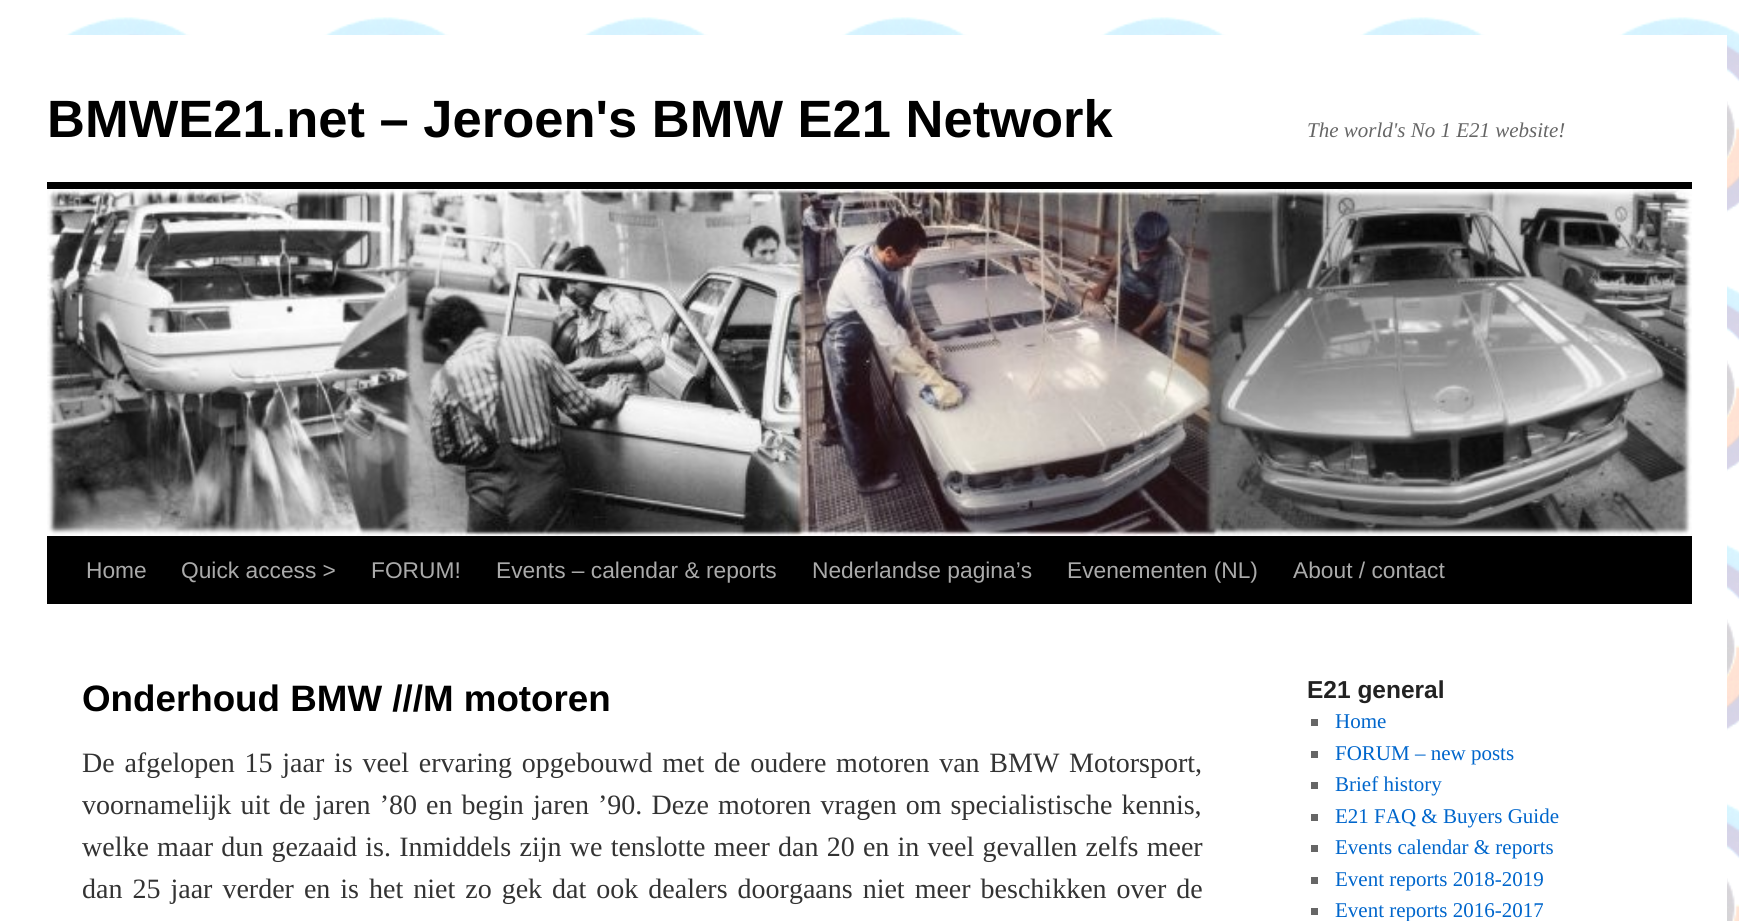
import math
import cairo

surface = cairo.ImageSurface(cairo.FORMAT_RGB24, 1739, 921)
cr = cairo.Context(surface)
options = cairo.FontOptions()
options.set_hint_metrics(cairo.HINT_METRICS_OFF)
options.set_hint_style(cairo.HINT_STYLE_NONE)
cr.set_font_options(options)
cr.set_miter_limit(4)


def rgb(code):
    cr.set_source_rgb(*(v / 255 for v in bytes.fromhex(code[-6:])))


def tracked(x, y, s, letter, word):
    cr.move_to(x, y)
    for ch in s:
        cr.show_text(ch)
        cr.rel_move_to(letter + word * (ch == ' '), 0)


def image(path, x, y, w, h):
    cr.save()
    cr.set_source_surface(cairo.ImageSurface.create_from_png(path), x, y)
    cr.rectangle(x, y, w, h)
    cr.fill()
    cr.restore()


rgb("#ffffff")
cr.paint()
image("img/1.png", 0, 0, 1739, 921)
for x, y, w, h, color in [
    (15, 35, 1712, 886, "#ffffff"),
    (47, 182, 1645, 7, "#000000"),
    (47, 536, 1645, 68, "#000000"),
]:
    rgb(color)
    cr.rectangle(x, y, w, h)
    cr.fill()
image("img/2.png", 47, 189, 1645, 347)
for x, y, w, h, color in [
    (1311, 719, 7, 7, "#666666"),
    (1311, 751, 7, 7, "#666666"),
    (1311, 782, 7, 7, "#666666"),
    (1311, 814, 7, 7, "#666666"),
    (1311, 845, 7, 7, "#666666"),
    (1311, 877, 7, 7, "#666666"),
    (1311, 908, 7, 7, "#666666"),
]:
    rgb(color)
    cr.rectangle(x, y, w, h)
    cr.fill()
cr.select_font_face("Liberation Sans", cairo.FONT_SLANT_NORMAL, cairo.FONT_WEIGHT_BOLD)
cr.set_font_size(52.5)
rgb("#000000")
cr.move_to(47, 137)
cr.show_text("BMWE21.net – Jeroen's BMW E21 Network")
cr.select_font_face("Liberation Serif", cairo.FONT_SLANT_ITALIC)
cr.set_font_size(21)
rgb("#666666")
cr.move_to(1307, 137)
cr.show_text("The world's No 1 E21 website!")
cr.select_font_face("Liberation Sans")
cr.set_font_size(22.75)
rgb("#aaaaaa")
for x, y, s in [
    (86, 578, "Home"),
    (181, 578, "Quick access >"),
    (371, 578, "FORUM!"),
    (496, 578, "Events – calendar & reports"),
    (812, 578, "Nederlandse pagina’s"),
    (1067, 578, "Evenementen (NL)"),
    (1293, 578, "About / contact"),
]:
    cr.move_to(x, y)
    cr.show_text(s)
cr.select_font_face("Liberation Sans", cairo.FONT_SLANT_NORMAL, cairo.FONT_WEIGHT_BOLD)
cr.set_font_size(36.75)
rgb("#000000")
cr.move_to(82, 711)
cr.show_text("Onderhoud BMW ///M motoren")
cr.select_font_face("Liberation Serif")
cr.set_font_size(28)
rgb("#333333")
tracked(82, 772, "De afgelopen 15 jaar is veel ervaring opgebouwd met de oudere motoren van BMW Motorsport,", 0, 2.75)
tracked(82, 814, "voornamelijk uit de jaren ’80 en begin jaren ’90. Deze motoren vragen om specialistische kennis,", 0, 2.1)
tracked(82, 856, "welke maar dun gezaaid is. Inmiddels zijn we tenslotte meer dan 20 en in veel gevallen zelfs meer", 0, 1.25)
tracked(82, 898, "dan 25 jaar verder en is het niet zo gek dat ook dealers doorgaans niet meer beschikken over de", 0, 3)
cr.select_font_face("Liberation Sans", cairo.FONT_SLANT_NORMAL, cairo.FONT_WEIGHT_BOLD)
cr.set_font_size(24.5)
rgb("#222222")
cr.move_to(1307, 698)
cr.show_text("E21 general")
cr.select_font_face("Liberation Serif")
cr.set_font_size(21)
rgb("#0066cc")
for x, y, s in [
    (1335, 728, "Home"),
    (1335, 760, "FORUM – new posts"),
    (1335, 791, "Brief history"),
    (1335, 823, "E21 FAQ & Buyers Guide"),
    (1335, 854, "Events calendar & reports"),
    (1335, 886, "Event reports 2018-2019"),
    (1335, 917, "Event reports 2016-2017"),
]:
    cr.move_to(x, y)
    cr.show_text(s)
surface.write_to_png("page.png")
